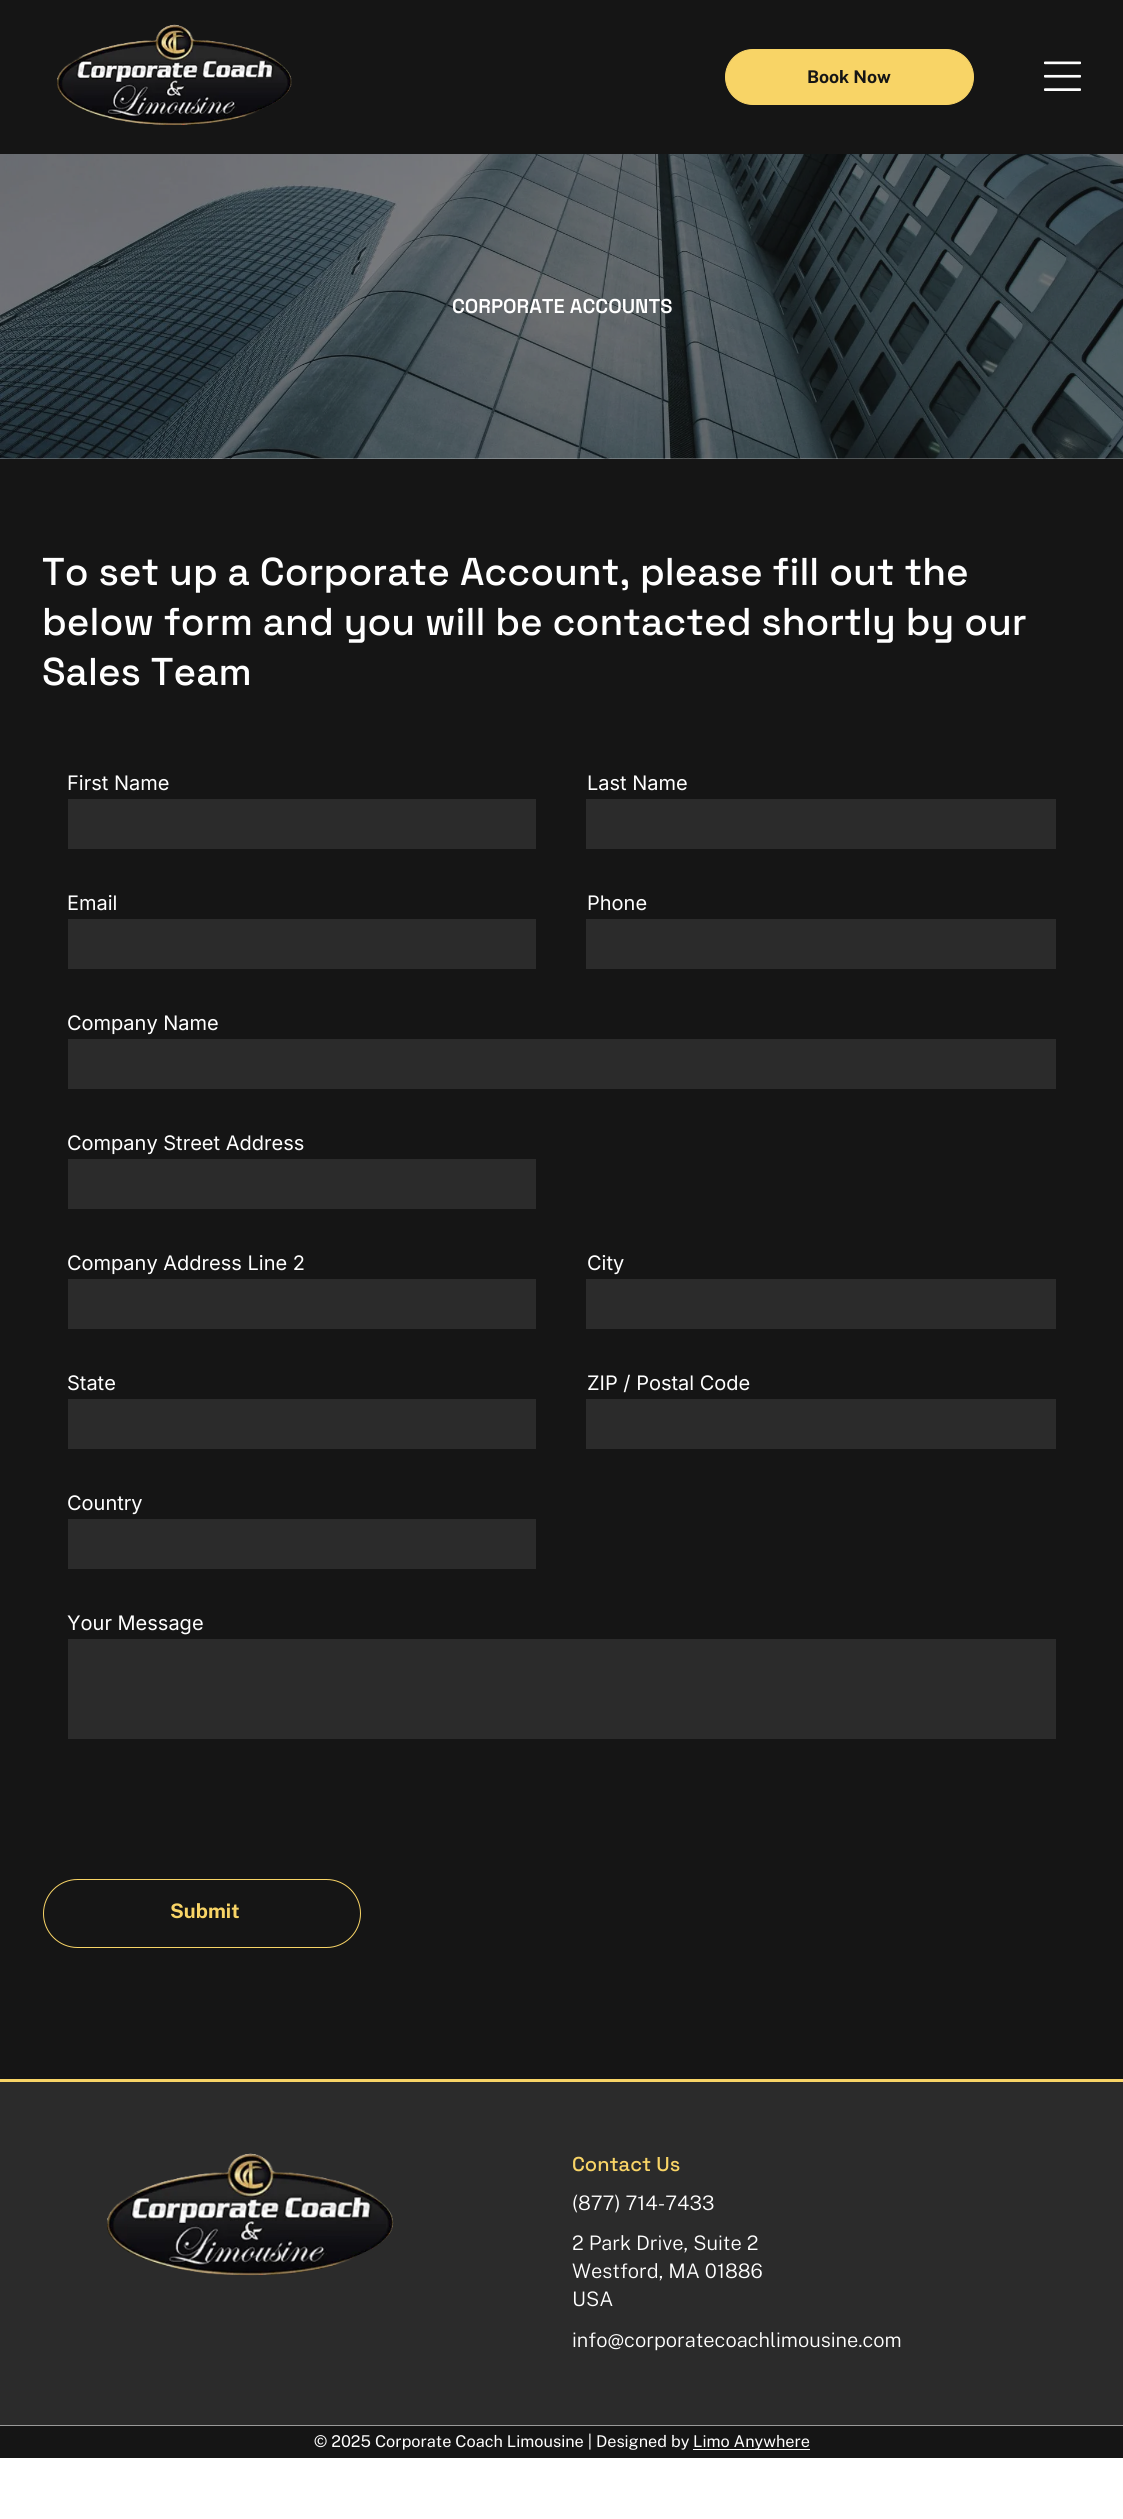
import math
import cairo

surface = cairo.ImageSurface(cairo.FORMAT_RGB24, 1123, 2519)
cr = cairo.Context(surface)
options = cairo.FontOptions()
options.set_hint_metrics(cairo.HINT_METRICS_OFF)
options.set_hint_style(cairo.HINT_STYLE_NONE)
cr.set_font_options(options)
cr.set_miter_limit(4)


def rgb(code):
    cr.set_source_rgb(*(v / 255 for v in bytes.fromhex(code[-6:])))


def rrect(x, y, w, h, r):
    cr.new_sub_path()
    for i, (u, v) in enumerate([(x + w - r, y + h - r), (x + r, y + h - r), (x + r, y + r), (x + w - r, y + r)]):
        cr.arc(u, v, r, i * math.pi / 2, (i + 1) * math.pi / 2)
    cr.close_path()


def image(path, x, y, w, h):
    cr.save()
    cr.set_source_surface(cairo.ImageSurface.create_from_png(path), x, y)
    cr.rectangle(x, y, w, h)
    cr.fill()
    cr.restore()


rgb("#ffffff")
cr.paint()
rgb("#151515")
cr.rectangle(0, 0, 1123, 154)
cr.fill()
image("img/1.png", 57, 24, 235, 101)
rgb("#f8d466")
rrect(725.5, 49.5, 248, 55, 27.5)
cr.fill_preserve()
cr.set_line_width(1)
cr.stroke()
image("img/2.png", 1044, 61, 37, 30)
image("img/3.png", 0, 154, 1123, 305)
for x, y, w, h, color in [
    (0, 459, 1123, 1620, "#151515"),
    (68, 799, 468, 50, "#2b2b2b"),
    (586, 799, 470, 50, "#2b2b2b"),
    (68, 919, 468, 50, "#2b2b2b"),
    (586, 919, 470, 50, "#2b2b2b"),
    (68, 1039, 988, 50, "#2b2b2b"),
    (68, 1159, 468, 50, "#2b2b2b"),
    (68, 1279, 468, 50, "#2b2b2b"),
    (586, 1279, 470, 50, "#2b2b2b"),
    (68, 1399, 468, 50, "#2b2b2b"),
    (586, 1399, 470, 50, "#2b2b2b"),
    (68, 1519, 468, 50, "#2b2b2b"),
    (68, 1639, 988, 100, "#2b2b2b"),
]:
    rgb(color)
    cr.rectangle(x, y, w, h)
    cr.fill()
rrect(43.5, 1879.5, 317, 68, 34)
rgb("#f8d466")
cr.stroke()
rgb("#2b2b2b")
cr.rectangle(0, 2082, 1123, 343)
cr.fill()
rgb("#f8d466")
cr.rectangle(0, 2079, 1123, 3)
cr.fill()
image("img/4.png", 107, 2153, 287, 123)
for x, y, w, h, color in [
    (0, 2426, 1123, 32, "#151515"),
    (0, 2425, 1123, 1, "#9a9a9a"),
    (693, 2449, 117, 1, "#ffffff"),
]:
    rgb(color)
    cr.rectangle(x, y, w, h)
    cr.fill()
cr.select_font_face("Public Sans", cairo.FONT_SLANT_NORMAL, cairo.FONT_WEIGHT_BOLD)
cr.set_font_size(17.5)
rgb("#151515")
cr.move_to(807, 83)
cr.show_text("Book Now")
cr.select_font_face("Space Grotesk SemiBold")
cr.set_font_size(20)
rgb("#ffffff")
cr.move_to(452, 313)
cr.show_text("CORPORATE ACCOUNTS")
cr.select_font_face("Space Grotesk Medium")
cr.set_font_size(38.75)
for x, y, s in [
    (42, 585, "To set up a Corporate Account, please fill out the"),
    (42, 635, "below form and you will be contacted shortly by our"),
    (42, 685, "Sales Team"),
]:
    cr.move_to(x, y)
    cr.show_text(s)
cr.select_font_face("Inter")
cr.set_font_size(20)
for x, y, s in [
    (67, 790, "First Name"),
    (587, 790, "Last Name"),
    (67, 910, "Email"),
    (587, 910, "Phone"),
    (67, 1030, "Company Name"),
    (67, 1150, "Company Street Address"),
    (67, 1270, "Company Address Line 2"),
    (587, 1270, "City"),
    (67, 1390, "State"),
    (587, 1390, "ZIP / Postal Code"),
    (67, 1510, "Country"),
    (67, 1630, "Your Message"),
]:
    cr.move_to(x, y)
    cr.show_text(s)
cr.select_font_face("Public Sans", cairo.FONT_SLANT_NORMAL, cairo.FONT_WEIGHT_BOLD)
rgb("#f8d466")
cr.move_to(170, 1918)
cr.show_text("Submit")
cr.select_font_face("Space Grotesk Medium")
cr.move_to(572, 2171)
cr.show_text("Contact Us")
cr.select_font_face("Public Sans Light")
rgb("#ffffff")
for x, y, s in [
    (572, 2210, "(877) 714-7433"),
    (572, 2250, "2 Park Drive, Suite 2"),
    (572, 2278, "Westford, MA 01886"),
    (572, 2306, "USA"),
    (572, 2347, "info@corporatecoachlimousine.com"),
]:
    cr.move_to(x, y)
    cr.show_text(s)
cr.select_font_face("Public Sans")
cr.set_font_size(16.25)
cr.move_to(314, 2447)
cr.show_text("© 2025 Corporate Coach Limousine | Designed by")
cr.move_to(693, 2447)
cr.show_text("Limo Anywhere")
surface.write_to_png("page.png")
